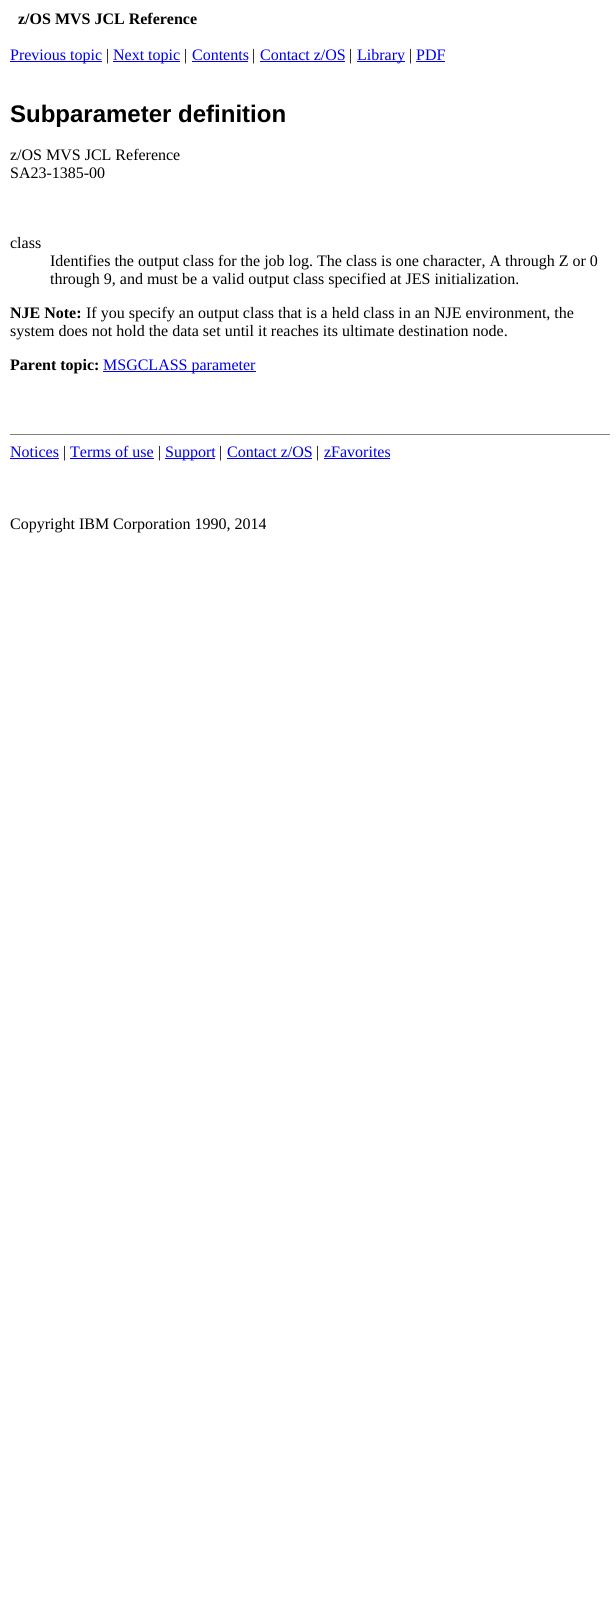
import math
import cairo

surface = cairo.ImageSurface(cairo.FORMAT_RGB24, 616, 1605)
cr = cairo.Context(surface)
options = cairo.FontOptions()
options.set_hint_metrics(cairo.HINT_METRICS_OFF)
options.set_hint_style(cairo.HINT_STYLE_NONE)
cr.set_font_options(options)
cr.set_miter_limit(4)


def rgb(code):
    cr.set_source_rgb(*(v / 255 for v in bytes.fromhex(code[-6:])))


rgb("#ffffff")
cr.paint()
for x, y, w, h, color in [
    (10, 61, 92, 1, "#0000ee"),
    (113, 61, 67, 1, "#0000ee"),
    (192, 61, 56, 1, "#0000ee"),
    (260, 61, 85, 1, "#0000ee"),
    (357, 61, 48, 1, "#0000ee"),
    (416, 61, 29, 1, "#0000ee"),
    (103, 371, 153, 1, "#0000ee"),
    (10, 434, 600, 1, "#808080"),
    (10, 458, 49, 1, "#0000ee"),
    (70, 458, 84, 1, "#0000ee"),
    (165, 458, 50, 1, "#0000ee"),
    (227, 458, 85, 1, "#0000ee"),
    (324, 458, 66, 1, "#0000ee"),
]:
    rgb(color)
    cr.rectangle(x, y, w, h)
    cr.fill()
cr.select_font_face("Liberation Serif", cairo.FONT_SLANT_NORMAL, cairo.FONT_WEIGHT_BOLD)
cr.set_font_size(16)
rgb("#000000")
cr.move_to(18, 24)
cr.show_text("z/OS MVS JCL Reference")
cr.select_font_face("Liberation Serif")
rgb("#0000ee")
cr.move_to(10, 60)
cr.show_text("Previous topic")
rgb("#000000")
cr.move_to(106, 60)
cr.show_text("|")
rgb("#0000ee")
cr.move_to(113, 60)
cr.show_text("Next topic")
rgb("#000000")
cr.move_to(184, 60)
cr.show_text("|")
rgb("#0000ee")
cr.move_to(192, 60)
cr.show_text("Contents")
rgb("#000000")
cr.move_to(252, 60)
cr.show_text("|")
rgb("#0000ee")
cr.move_to(260, 60)
cr.show_text("Contact z/OS")
rgb("#000000")
cr.move_to(349, 60)
cr.show_text("|")
rgb("#0000ee")
cr.move_to(357, 60)
cr.show_text("Library")
rgb("#000000")
cr.move_to(409, 60)
cr.show_text("|")
rgb("#0000ee")
cr.move_to(416, 60)
cr.show_text("PDF")
cr.select_font_face("Liberation Sans", cairo.FONT_SLANT_NORMAL, cairo.FONT_WEIGHT_BOLD)
cr.set_font_size(24)
rgb("#000000")
cr.move_to(10, 122)
cr.show_text("Subparameter definition")
cr.select_font_face("Liberation Serif")
cr.set_font_size(16)
for x, y, s in [
    (10, 160, "z/OS MVS JCL Reference"),
    (10, 178, "SA23-1385-00"),
    (10, 248, "class"),
    (50, 266, "Identifies the output class for the job log. The class is one character, A through Z or 0"),
    (50, 284, "through 9, and must be a valid output class specified at JES initialization."),
]:
    cr.move_to(x, y)
    cr.show_text(s)
cr.select_font_face("Liberation Serif", cairo.FONT_SLANT_NORMAL, cairo.FONT_WEIGHT_BOLD)
cr.move_to(10, 318)
cr.show_text("NJE Note:")
cr.select_font_face("Liberation Serif")
cr.move_to(86, 318)
cr.show_text("If you specify an output class that is a held class in an NJE environment, the")
cr.move_to(10, 336)
cr.show_text("system does not hold the data set until it reaches its ultimate destination node.")
cr.select_font_face("Liberation Serif", cairo.FONT_SLANT_NORMAL, cairo.FONT_WEIGHT_BOLD)
cr.move_to(10, 370)
cr.show_text("Parent topic:")
cr.select_font_face("Liberation Serif")
rgb("#0000ee")
cr.move_to(103, 370)
cr.show_text("MSGCLASS parameter")
cr.move_to(10, 457)
cr.show_text("Notices")
rgb("#000000")
cr.move_to(63, 457)
cr.show_text("|")
rgb("#0000ee")
cr.move_to(70, 457)
cr.show_text("Terms of use")
rgb("#000000")
cr.move_to(158, 457)
cr.show_text("|")
rgb("#0000ee")
cr.move_to(165, 457)
cr.show_text("Support")
rgb("#000000")
cr.move_to(219, 457)
cr.show_text("|")
rgb("#0000ee")
cr.move_to(227, 457)
cr.show_text("Contact z/OS")
rgb("#000000")
cr.move_to(316, 457)
cr.show_text("|")
rgb("#0000ee")
cr.move_to(324, 457)
cr.show_text("zFavorites")
rgb("#000000")
cr.move_to(10, 529)
cr.show_text("Copyright IBM Corporation 1990, 2014")
surface.write_to_png("page.png")
